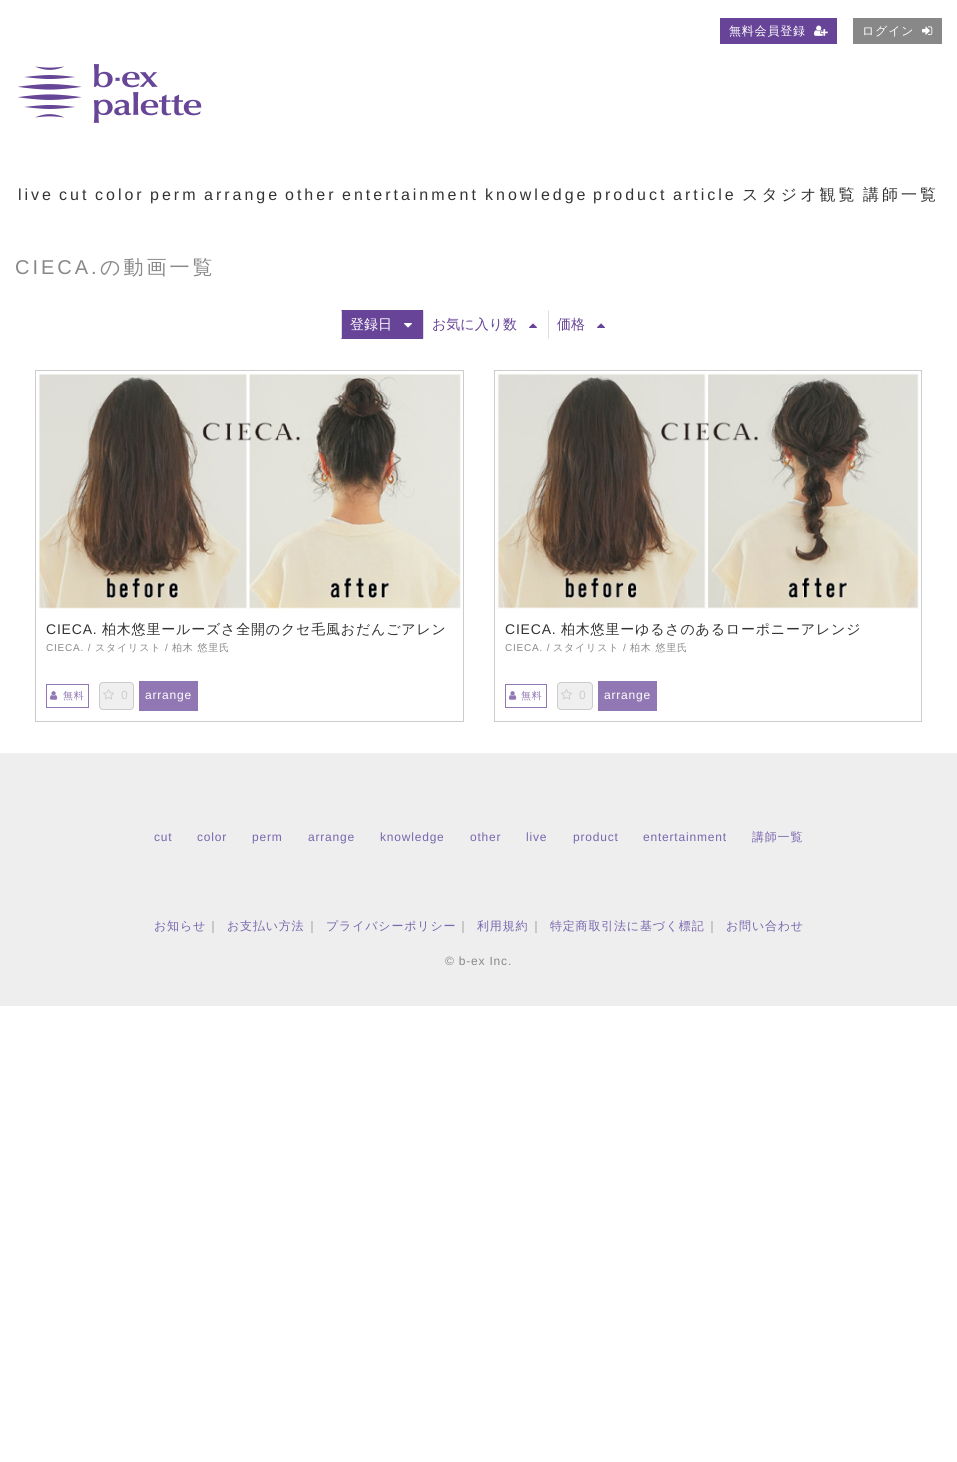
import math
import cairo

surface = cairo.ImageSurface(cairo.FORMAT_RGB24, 957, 1462)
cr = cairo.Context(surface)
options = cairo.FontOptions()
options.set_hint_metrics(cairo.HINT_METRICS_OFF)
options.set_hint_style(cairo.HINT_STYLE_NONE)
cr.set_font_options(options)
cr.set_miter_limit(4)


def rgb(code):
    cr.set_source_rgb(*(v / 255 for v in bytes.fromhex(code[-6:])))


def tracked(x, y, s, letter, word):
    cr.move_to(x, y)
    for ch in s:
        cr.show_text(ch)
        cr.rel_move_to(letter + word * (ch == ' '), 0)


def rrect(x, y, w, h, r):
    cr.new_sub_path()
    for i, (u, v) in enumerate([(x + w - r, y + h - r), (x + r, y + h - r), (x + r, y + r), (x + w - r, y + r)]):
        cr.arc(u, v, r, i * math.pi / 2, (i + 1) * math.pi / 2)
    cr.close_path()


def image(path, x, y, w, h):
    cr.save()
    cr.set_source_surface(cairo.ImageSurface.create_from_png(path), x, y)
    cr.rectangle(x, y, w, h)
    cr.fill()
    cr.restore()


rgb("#ffffff")
cr.paint()
rgb("#674498")
cr.rectangle(720, 18, 117, 26)
cr.fill()
image("img/1.png", 814, 25, 14, 11)
rgb("#888888")
cr.rectangle(853, 18, 89, 26)
cr.fill()
image("img/2.png", 922, 26, 11, 9)
image("img/3.png", 17, 64, 185, 59)
rgb("#674498")
cr.rectangle(341, 310, 82, 29)
cr.fill()
rgb("#dddddd")
cr.new_path()
cr.move_to(341, 339)
cr.line_to(341, 310)
cr.line_to(342, 311)
cr.line_to(342, 338)
cr.close_path()
cr.fill()
image("img/4.png", 404, 323, 8, 5)
cr.new_path()
cr.move_to(423, 339)
cr.line_to(423, 310)
cr.line_to(424, 311)
cr.line_to(424, 338)
cr.close_path()
cr.fill()
image("img/5.png", 529, 323, 8, 5)
cr.new_path()
cr.move_to(548, 339)
cr.line_to(548, 310)
cr.line_to(549, 311)
cr.line_to(549, 338)
cr.close_path()
cr.fill()
image("img/5.png", 597, 323, 8, 5)
cr.rectangle(35.5, 370.5, 428, 351)
rgb("#cccccc")
cr.set_line_width(1)
cr.stroke()
image("img/6.png", 38, 374, 423, 235)
cr.rectangle(46.5, 684.5, 42, 23)
rgb("#9178b4")
cr.stroke()
image("img/7.png", 50, 691, 8, 9)
rgb("#efefef")
rrect(99.5, 682.5, 34, 27, 3.5)
cr.fill_preserve()
rgb("#cccccc")
cr.stroke()
image("img/8.png", 103, 689, 11, 11)
rgb("#9178b4")
cr.rectangle(139, 681, 59, 30)
cr.fill()
cr.rectangle(494.5, 370.5, 427, 351)
rgb("#cccccc")
cr.stroke()
image("img/9.png", 496, 373, 423, 236)
cr.rectangle(505.5, 684.5, 41, 23)
rgb("#9178b4")
cr.stroke()
image("img/7.png", 509, 691, 8, 9)
rgb("#efefef")
rrect(557.5, 682.5, 35, 27, 3.5)
cr.fill_preserve()
rgb("#cccccc")
cr.stroke()
image("img/8.png", 561, 689, 11, 11)
rgb("#9178b4")
cr.rectangle(598, 681, 59, 30)
cr.fill()
rgb("#eeeeee")
cr.rectangle(0, 753, 957, 253)
cr.fill()
cr.select_font_face("WenQuanYi Zen Hei Medium")
cr.set_font_size(12)
rgb("#ffffff")
tracked(729, 35, "無料会員登録", 0.8, 0)
tracked(862, 35, "ログイン", 0.8, 0)
cr.select_font_face("Liberation Sans")
cr.set_font_size(16)
rgb("#333333")
for x, y, s in [
    (18, 200, "live"),
    (59, 200, "cut"),
    (95, 200, "color"),
    (150, 200, "perm"),
    (204, 200, "arrange"),
    (285, 200, "other"),
    (342, 200, "entertainment"),
    (485, 200, "knowledge"),
    (593, 200, "product"),
    (673, 200, "article"),
]:
    tracked(x, y, s, 3, 0)
cr.select_font_face("WenQuanYi Zen Hei Medium")
tracked(742, 200, "スタジオ観覧", 3, 0)
tracked(863, 200, "講師一覧", 3, 0)
cr.select_font_face("Liberation Sans")
cr.set_font_size(20)
rgb("#888888")
tracked(15, 274, "CIECA.", 3, 0)
cr.select_font_face("WenQuanYi Zen Hei Medium")
tracked(100, 274, "の動画一覧", 3, 0)
cr.set_font_size(14)
rgb("#ffffff")
cr.move_to(350, 329)
cr.show_text("登録日")
rgb("#674498")
cr.move_to(432, 329)
cr.show_text("お気に入り数")
cr.move_to(557, 329)
cr.show_text("価格")
cr.select_font_face("Liberation Sans")
rgb("#333333")
tracked(46, 634, "CIECA.", 0.8, 0)
cr.select_font_face("WenQuanYi Zen Hei Medium")
tracked(102, 634, "柏木悠里ールーズさ全開のクセ毛風おだんごアレン", 0.8, 0)
cr.select_font_face("Liberation Sans")
cr.set_font_size(10)
rgb("#888888")
tracked(46, 651, "CIECA. /", 0.8, 0)
cr.select_font_face("WenQuanYi Zen Hei Medium")
tracked(95, 651, "スタイリスト", 0.8, 0)
cr.select_font_face("Liberation Sans")
tracked(165, 651, "/", 0.8, 0)
cr.select_font_face("WenQuanYi Zen Hei Medium")
tracked(172, 651, "柏木 悠里氏", 0.8, 0)
rgb("#9178b4")
tracked(63, 699, "無料", 0.8, 0)
cr.select_font_face("Liberation Sans")
cr.set_font_size(12)
rgb("#cccccc")
tracked(121, 699, "0", 0.8, 0)
rgb("#ffffff")
tracked(145, 699, "arrange", 0.8, 0)
cr.set_font_size(14)
rgb("#333333")
tracked(505, 634, "CIECA.", 0.8, 0)
cr.select_font_face("WenQuanYi Zen Hei Medium")
tracked(561, 634, "柏木悠里ーゆるさのあるローポニーアレンジ", 0.8, 0)
cr.select_font_face("Liberation Sans")
cr.set_font_size(10)
rgb("#888888")
tracked(505, 651, "CIECA. /", 0.8, 0)
cr.select_font_face("WenQuanYi Zen Hei Medium")
tracked(553, 651, "スタイリスト", 0.8, 0)
cr.select_font_face("Liberation Sans")
tracked(623, 651, "/", 0.8, 0)
cr.select_font_face("WenQuanYi Zen Hei Medium")
tracked(630, 651, "柏木 悠里氏", 0.8, 0)
rgb("#9178b4")
tracked(521, 699, "無料", 0.8, 0)
cr.select_font_face("Liberation Sans")
cr.set_font_size(12)
rgb("#cccccc")
tracked(579, 699, "0", 0.8, 0)
rgb("#ffffff")
tracked(604, 699, "arrange", 0.8, 0)
rgb("#7966ad")
for x, y, s in [
    (154, 841, "cut"),
    (197, 841, "color"),
    (252, 841, "perm"),
    (308, 841, "arrange"),
    (380, 841, "knowledge"),
    (470, 841, "other"),
    (526, 841, "live"),
    (573, 841, "product"),
    (643, 841, "entertainment"),
]:
    tracked(x, y, s, 0.8, 0)
cr.select_font_face("WenQuanYi Zen Hei Medium")
tracked(752, 841, "講師一覧", 0.8, 0)
tracked(154, 930, "お知らせ", 0.8, 0)
rgb("#888888")
tracked(207, 930, "｜", 0.8, 0)
rgb("#7966ad")
tracked(227, 930, "お支払い方法", 0.8, 0)
rgb("#888888")
tracked(306, 930, "｜", 0.8, 0)
rgb("#7966ad")
tracked(326, 930, "プライバシーポリシー", 0.8, 0)
rgb("#888888")
tracked(457, 930, "｜", 0.8, 0)
rgb("#7966ad")
tracked(477, 930, "利用規約", 0.8, 0)
rgb("#888888")
tracked(530, 930, "｜", 0.8, 0)
rgb("#7966ad")
tracked(550, 930, "特定商取引法に基づく標記", 0.8, 0)
rgb("#888888")
tracked(706, 930, "｜", 0.8, 0)
rgb("#7966ad")
tracked(726, 930, "お問い合わせ", 0.8, 0)
cr.select_font_face("Liberation Sans")
rgb("#888888")
tracked(445, 965, "© b-ex Inc.", 0.8, 0)
surface.write_to_png("page.png")
